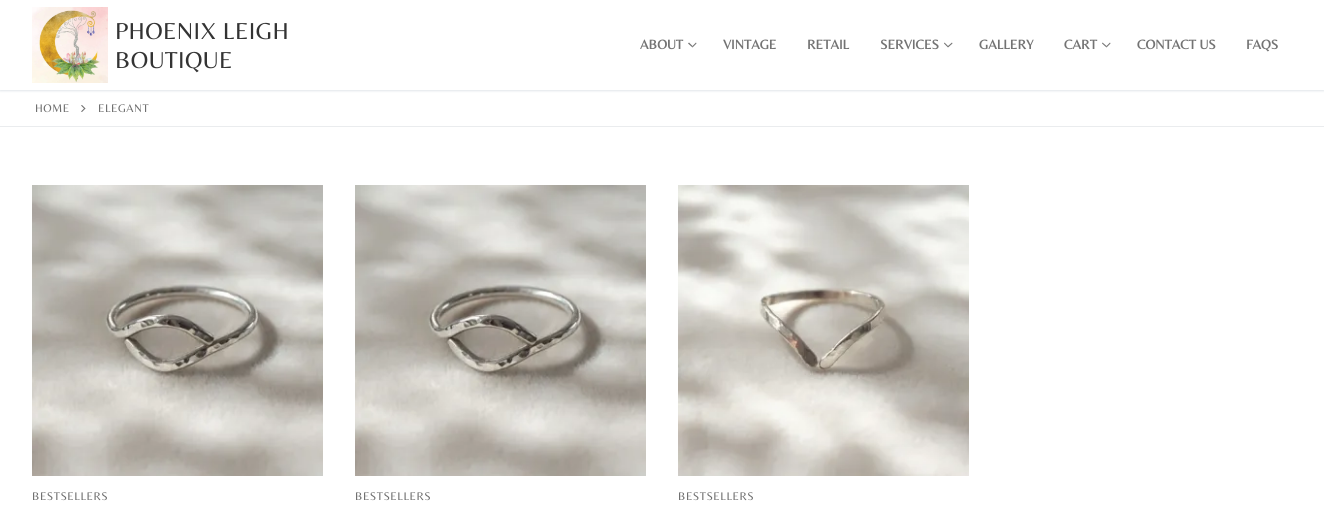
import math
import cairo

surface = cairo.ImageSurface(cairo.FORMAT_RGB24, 1324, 517)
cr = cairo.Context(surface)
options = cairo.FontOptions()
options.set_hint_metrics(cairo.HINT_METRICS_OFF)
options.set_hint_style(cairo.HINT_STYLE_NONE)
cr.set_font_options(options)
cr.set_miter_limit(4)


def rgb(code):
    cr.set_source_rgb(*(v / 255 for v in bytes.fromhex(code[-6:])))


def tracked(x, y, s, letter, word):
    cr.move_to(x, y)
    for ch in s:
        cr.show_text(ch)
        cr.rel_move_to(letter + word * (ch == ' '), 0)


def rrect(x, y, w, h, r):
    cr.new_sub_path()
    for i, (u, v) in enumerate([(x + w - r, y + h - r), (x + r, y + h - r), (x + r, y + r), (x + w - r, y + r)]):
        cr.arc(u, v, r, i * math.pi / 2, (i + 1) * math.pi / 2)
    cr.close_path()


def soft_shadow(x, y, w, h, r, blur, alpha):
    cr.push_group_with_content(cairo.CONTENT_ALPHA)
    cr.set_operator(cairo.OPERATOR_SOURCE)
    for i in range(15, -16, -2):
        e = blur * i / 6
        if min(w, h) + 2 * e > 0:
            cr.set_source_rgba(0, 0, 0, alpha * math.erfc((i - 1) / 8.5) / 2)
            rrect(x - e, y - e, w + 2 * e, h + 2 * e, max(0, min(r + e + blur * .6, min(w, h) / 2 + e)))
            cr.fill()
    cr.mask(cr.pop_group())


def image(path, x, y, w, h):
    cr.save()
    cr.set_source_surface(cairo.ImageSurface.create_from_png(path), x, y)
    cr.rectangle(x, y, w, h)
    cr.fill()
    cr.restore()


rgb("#ffffff")
cr.paint()
cr.save()
cr.rectangle(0, 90, 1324, 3)
cr.clip()
rgb("#e1e5ea")
soft_shadow(0, 1, 1324, 90, 0, 1, 1)
cr.restore()
image("img/1.png", 32, 7, 76, 76)
rgb("#737373")
cr.new_path()
cr.move_to(692.5, 47.5)
cr.line_to(688, 43.5)
cr.line_to(689, 42.5)
cr.line_to(692.5, 46)
cr.close_path()
cr.fill()
cr.set_source_rgba(0, 0, 0, 0.55)
cr.new_path()
cr.move_to(696.5, 43.5)
cr.line_to(692.5, 47.5)
cr.line_to(692.5, 46)
cr.line_to(696, 42.5)
cr.close_path()
cr.fill()
rgb("#737373")
cr.new_path()
cr.move_to(948, 47.5)
cr.line_to(944, 43.5)
cr.line_to(944.5, 42.5)
cr.line_to(948, 46)
cr.close_path()
cr.move_to(952.5, 43.5)
cr.line_to(948, 47.5)
cr.line_to(948, 46)
cr.line_to(952, 42.5)
cr.close_path()
cr.fill()
cr.new_path()
cr.move_to(1106.5, 47.5)
cr.line_to(1102, 43.5)
cr.line_to(1102.5, 42.5)
cr.line_to(1106.5, 46)
cr.close_path()
cr.fill()
cr.set_source_rgba(0, 0, 0, 0.55)
cr.new_path()
cr.move_to(1110.5, 43.5)
cr.line_to(1106.5, 47.5)
cr.line_to(1106.5, 46)
cr.line_to(1110, 42.5)
cr.close_path()
cr.fill()
rgb("#eaecee")
cr.rectangle(0, 126, 1324, 1)
cr.fill()
rgb("#6d6d6d")
cr.new_path()
cr.move_to(85.5, 108.5)
cr.line_to(82, 112)
cr.line_to(81, 111.5)
cr.line_to(84.5, 108)
cr.close_path()
cr.fill()
cr.new_path()
cr.move_to(85.5, 108.5)
cr.line_to(84.5, 109)
cr.line_to(81, 105.5)
cr.line_to(82, 105)
cr.close_path()
cr.fill()
image("img/2.png", 32, 185, 291, 291)
image("img/2.png", 355, 185, 291, 291)
image("img/3.png", 678, 185, 291, 291)
cr.select_font_face("Belleza")
cr.set_font_size(24)
rgb("#333333")
tracked(115, 39, "PHOENIX LEIGH", 0.4, 0)
tracked(115, 68, "BOUTIQUE", 0.4, 0)
cr.select_font_face("Belleza", cairo.FONT_SLANT_NORMAL, cairo.FONT_WEIGHT_BOLD)
cr.set_font_size(13.5)
rgb("#737373")
for x, y, s in [
    (640, 49, "ABOUT"),
    (723, 49, "VINTAGE"),
    (807, 49, "RETAIL"),
    (880, 49, "SERVICES"),
    (979, 49, "GALLERY"),
    (1064, 49, "CART"),
    (1137, 49, "CONTACT US"),
    (1246, 49, "FAQS"),
]:
    cr.move_to(x, y)
    cr.show_text(s)
cr.select_font_face("Belleza")
cr.set_font_size(11.5)
rgb("#6d6d6d")
for x, y, s in [
    (35, 112, "HOME"),
    (98, 112, "ELEGANT"),
    (32, 500, "BESTSELLERS"),
    (355, 500, "BESTSELLERS"),
    (678, 500, "BESTSELLERS"),
]:
    tracked(x, y, s, 0.5, 0)
surface.write_to_png("page.png")
